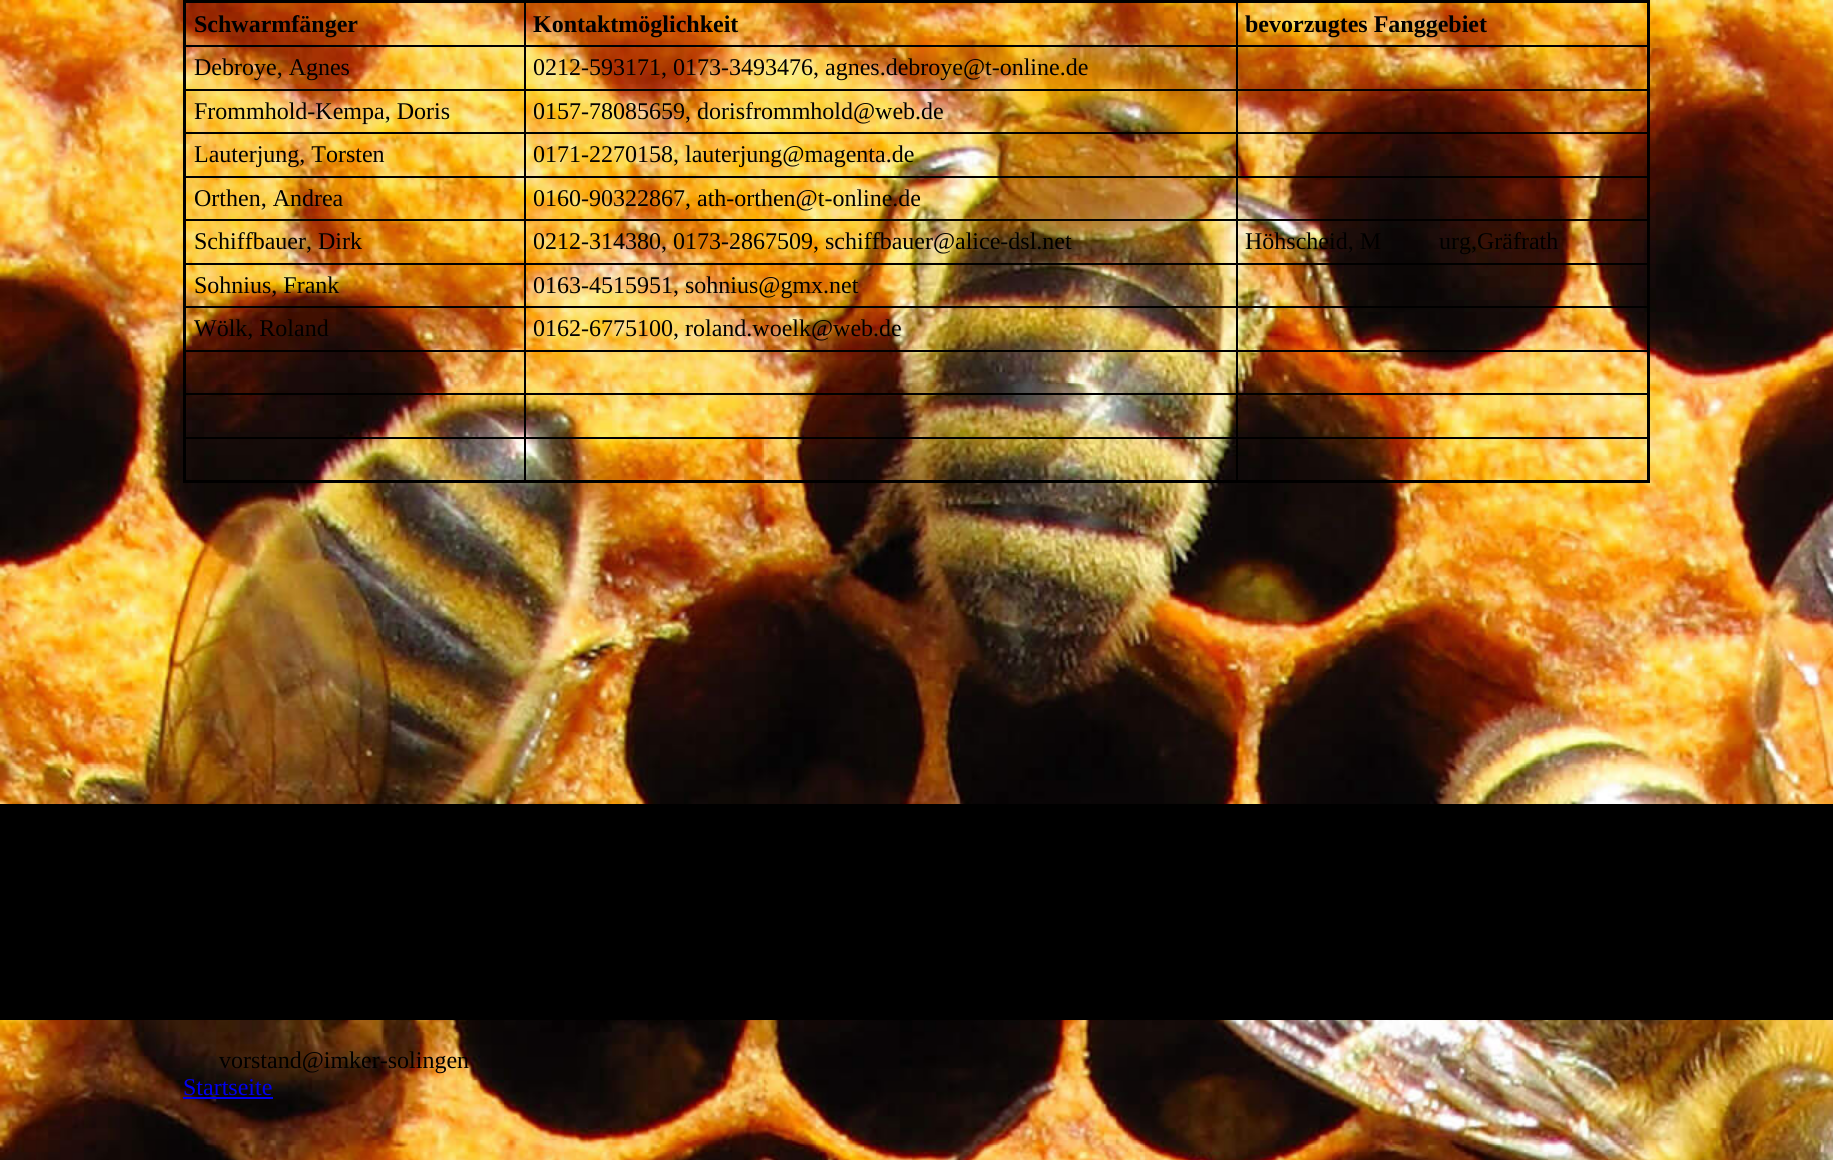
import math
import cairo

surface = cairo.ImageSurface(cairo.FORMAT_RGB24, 1833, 1160)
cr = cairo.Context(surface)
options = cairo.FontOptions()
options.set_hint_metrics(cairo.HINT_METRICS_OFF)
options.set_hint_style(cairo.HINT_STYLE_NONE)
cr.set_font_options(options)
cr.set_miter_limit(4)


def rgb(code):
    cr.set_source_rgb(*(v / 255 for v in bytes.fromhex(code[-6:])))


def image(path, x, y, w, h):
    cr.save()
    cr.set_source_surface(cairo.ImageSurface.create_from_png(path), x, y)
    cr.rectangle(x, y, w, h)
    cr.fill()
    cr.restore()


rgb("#ffffff")
cr.paint()
image("img/1.png", 0, 0, 1833, 1160)
cr.rectangle(184.5, 1.5, 1464, 480)
rgb("#000000")
cr.set_line_width(3)
cr.stroke()
for x, y, w, h, color in [
    (524, 3, 2, 87, "#000000"),
    (186, 45, 339, 2, "#000000"),
    (1236, 3, 2, 87, "#000000"),
    (525, 45, 1122, 2, "#000000"),
    (186, 89, 1461, 2, "#000000"),
    (524, 90, 2, 87, "#000000"),
    (186, 132, 339, 2, "#000000"),
    (1236, 90, 2, 87, "#000000"),
    (525, 132, 1122, 2, "#000000"),
    (186, 176, 1461, 2, "#000000"),
    (524, 177, 2, 87, "#000000"),
    (186, 219, 339, 2, "#000000"),
    (1236, 177, 2, 87, "#000000"),
    (525, 219, 1122, 2, "#000000"),
    (186, 263, 1461, 2, "#000000"),
    (524, 264, 2, 87, "#000000"),
    (186, 306, 339, 2, "#000000"),
    (1236, 264, 2, 87, "#000000"),
    (525, 306, 1122, 2, "#000000"),
    (186, 350, 1461, 2, "#000000"),
    (524, 351, 2, 87, "#000000"),
    (186, 393, 339, 2, "#000000"),
    (1236, 351, 2, 87, "#000000"),
    (525, 393, 1122, 2, "#000000"),
    (186, 437, 1461, 2, "#000000"),
    (524, 438, 2, 42, "#000000"),
    (1236, 438, 2, 42, "#000000"),
    (0, 804, 1833, 216, "#000000"),
    (183, 1097, 90, 2, "#0000ee"),
]:
    rgb(color)
    cr.rectangle(x, y, w, h)
    cr.fill()
cr.select_font_face("Liberation Serif", cairo.FONT_SLANT_NORMAL, cairo.FONT_WEIGHT_BOLD)
cr.set_font_size(24)
rgb("#000000")
for x, y, s in [
    (194, 32, "Schwarmfänger"),
    (533, 32, "Kontaktmöglichkeit"),
    (1245, 32, "bevorzugtes Fanggebiet"),
]:
    cr.move_to(x, y)
    cr.show_text(s)
cr.select_font_face("Liberation Serif")
for x, y, s in [
    (194, 75, "Debroye, Agnes"),
    (533, 75, "0212-593171, 0173-3493476, agnes.debroye@t-online.de"),
    (194, 119, "Frommhold-Kempa, Doris"),
    (533, 119, "0157-78085659, dorisfrommhold@web.de"),
    (194, 162, "Lauterjung, Torsten"),
    (533, 162, "0171-2270158, lauterjung@magenta.de"),
    (194, 206, "Orthen, Andrea"),
    (533, 206, "0160-90322867, ath-orthen@t-online.de"),
    (194, 249, "Schiffbauer, Dirk"),
    (533, 249, "0212-314380, 0173-2867509, schiffbauer@alice-dsl.net"),
    (1245, 249, "Höhscheid, M"),
    (1439, 249, "urg,Gräfrath"),
    (194, 293, "Sohnius, Frank"),
    (533, 293, "0163-4515951, sohnius@gmx.net"),
    (194, 336, "Wölk, Roland"),
    (533, 336, "0162-6775100, roland.woelk@web.de"),
    (219, 1068, "vorstand@imker-solingen"),
]:
    cr.move_to(x, y)
    cr.show_text(s)
rgb("#0000ee")
cr.move_to(183, 1095)
cr.show_text("Startseite")
surface.write_to_png("page.png")
